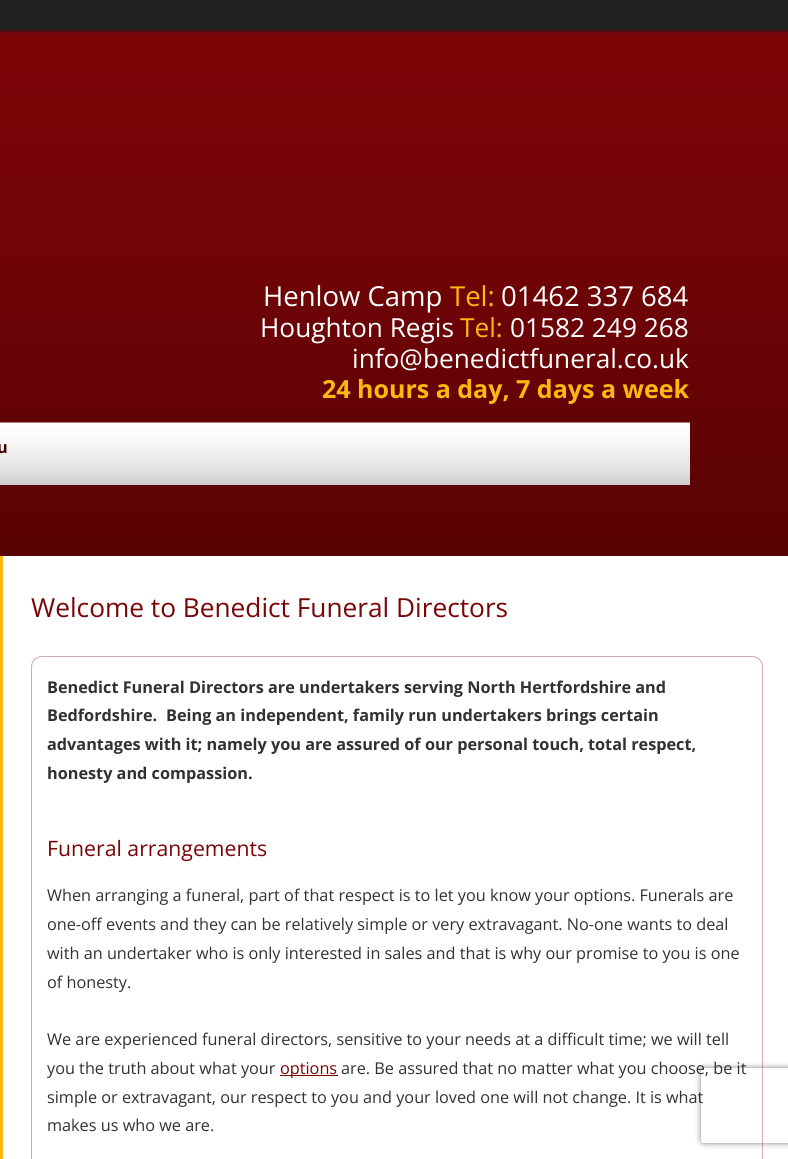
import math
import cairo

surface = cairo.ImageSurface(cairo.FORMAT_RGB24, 788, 1159)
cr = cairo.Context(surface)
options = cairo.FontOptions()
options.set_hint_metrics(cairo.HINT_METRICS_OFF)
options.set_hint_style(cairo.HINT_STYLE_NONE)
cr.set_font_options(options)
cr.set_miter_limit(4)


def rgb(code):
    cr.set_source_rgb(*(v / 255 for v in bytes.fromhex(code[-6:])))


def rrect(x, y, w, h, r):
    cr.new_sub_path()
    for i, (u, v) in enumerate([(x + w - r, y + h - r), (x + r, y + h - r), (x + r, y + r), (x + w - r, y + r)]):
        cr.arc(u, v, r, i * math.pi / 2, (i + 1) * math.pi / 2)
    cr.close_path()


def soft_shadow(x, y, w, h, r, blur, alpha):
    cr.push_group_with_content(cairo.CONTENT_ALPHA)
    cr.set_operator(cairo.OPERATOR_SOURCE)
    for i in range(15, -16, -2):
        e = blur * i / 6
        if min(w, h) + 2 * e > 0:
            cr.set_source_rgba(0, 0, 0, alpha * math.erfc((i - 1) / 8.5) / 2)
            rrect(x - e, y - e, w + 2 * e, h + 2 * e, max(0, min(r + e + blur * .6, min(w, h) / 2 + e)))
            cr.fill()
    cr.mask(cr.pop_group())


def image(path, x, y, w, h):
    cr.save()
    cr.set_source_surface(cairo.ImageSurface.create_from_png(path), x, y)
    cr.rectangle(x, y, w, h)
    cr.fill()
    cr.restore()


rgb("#ffffff")
cr.paint()
image("img/1.png", 0, 0, 788, 556)
image("img/2.png", 0, 422, 690, 63)
rgb("#fdb812")
cr.rectangle(0, 556, 3, 603)
cr.fill()
rrect(31.5, 656.5, 731, 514, 10.5)
rgb("#cfaaaa")
cr.set_line_width(1)
cr.stroke()
rgb("#790507")
cr.rectangle(280, 1075, 58, 1)
cr.fill()
cr.save()
cr.set_fill_rule(cairo.FILL_RULE_EVEN_ODD)
cr.new_path()
cr.move_to(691, 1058)
cr.line_to(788, 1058)
cr.line_to(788, 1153)
cr.line_to(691, 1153)
cr.close_path()
cr.move_to(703.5, 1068)
cr.line_to(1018.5, 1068)
cr.curve_to(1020, 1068, 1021, 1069, 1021, 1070.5)
cr.line_to(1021, 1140.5)
cr.curve_to(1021, 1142, 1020, 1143, 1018.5, 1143)
cr.line_to(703.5, 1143)
cr.curve_to(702, 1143, 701, 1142, 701, 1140.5)
cr.line_to(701, 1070.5)
cr.curve_to(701, 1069, 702, 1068, 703.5, 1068)
cr.close_path()
cr.clip()
rgb("#808080")
soft_shadow(701, 1068, 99, 75, 2.5, 3, 1)
cr.restore()
cr.select_font_face("Open Sans")
cr.set_font_size(27.5)
rgb("#ffffff")
cr.move_to(263, 306)
cr.show_text("Henlow Camp")
rgb("#fdb812")
cr.move_to(450, 306)
cr.show_text("Tel:")
rgb("#ffffff")
cr.move_to(501, 306)
cr.show_text("01462 337 684")
cr.set_font_size(26.25)
cr.move_to(260, 337)
cr.show_text("Houghton Regis")
rgb("#fdb812")
cr.move_to(460, 337)
cr.show_text("Tel:")
rgb("#ffffff")
cr.move_to(510, 337)
cr.show_text("01582 249 268")
cr.move_to(352, 368)
cr.show_text("info@benedictfuneral.co.uk")
cr.select_font_face("Open Sans", cairo.FONT_SLANT_NORMAL, cairo.FONT_WEIGHT_BOLD)
cr.set_font_size(25)
rgb("#fdb812")
cr.move_to(322, 398)
cr.show_text("24 hours a day, 7 days a week")
cr.set_font_size(16.25)
rgb("#3e0001")
cr.move_to(-3, 453)
cr.show_text("u")
cr.select_font_face("Open Sans")
cr.set_font_size(26.25)
rgb("#790507")
cr.move_to(31, 617)
cr.show_text("Welcome to Benedict Funeral Directors")
cr.select_font_face("Open Sans", cairo.FONT_SLANT_NORMAL, cairo.FONT_WEIGHT_BOLD)
cr.set_font_size(16.25)
rgb("#313131")
for x, y, s in [
    (47, 693, "Benedict Funeral Directors are undertakers serving North Hertfordshire and"),
    (47, 721, "Bedfordshire."),
    (166, 721, "Being an independent, family run undertakers brings certain"),
    (47, 750, "advantages with it; namely you are assured of our personal touch, total respect,"),
    (47, 779, "honesty and compassion."),
]:
    cr.move_to(x, y)
    cr.show_text(s)
cr.select_font_face("Open Sans")
cr.set_font_size(21.25)
rgb("#790507")
cr.move_to(47, 856)
cr.show_text("Funeral arrangements")
cr.set_font_size(16.25)
rgb("#313131")
for x, y, s in [
    (47, 901, "When arranging a funeral, part of that respect is to let you know your options. Funerals are"),
    (47, 930, "one-off events and they can be relatively simple or very extravagant. No-one wants to deal"),
    (47, 959, "with an undertaker who is only interested in sales and that is why our promise to you is one"),
    (47, 988, "of honesty."),
    (47, 1045, "We are experienced funeral directors, sensitive to your needs at a difficult time; we will tell"),
    (47, 1074, "you the truth about what your"),
]:
    cr.move_to(x, y)
    cr.show_text(s)
rgb("#790507")
cr.move_to(280, 1074)
cr.show_text("options")
rgb("#313131")
for x, y, s in [
    (341, 1074, "are. Be assured that no matter what you choose, be it"),
    (47, 1103, "simple or extravagant, our respect to you and your loved one will not change. It is what"),
    (47, 1131, "makes us who we are."),
]:
    cr.move_to(x, y)
    cr.show_text(s)
surface.write_to_png("page.png")
